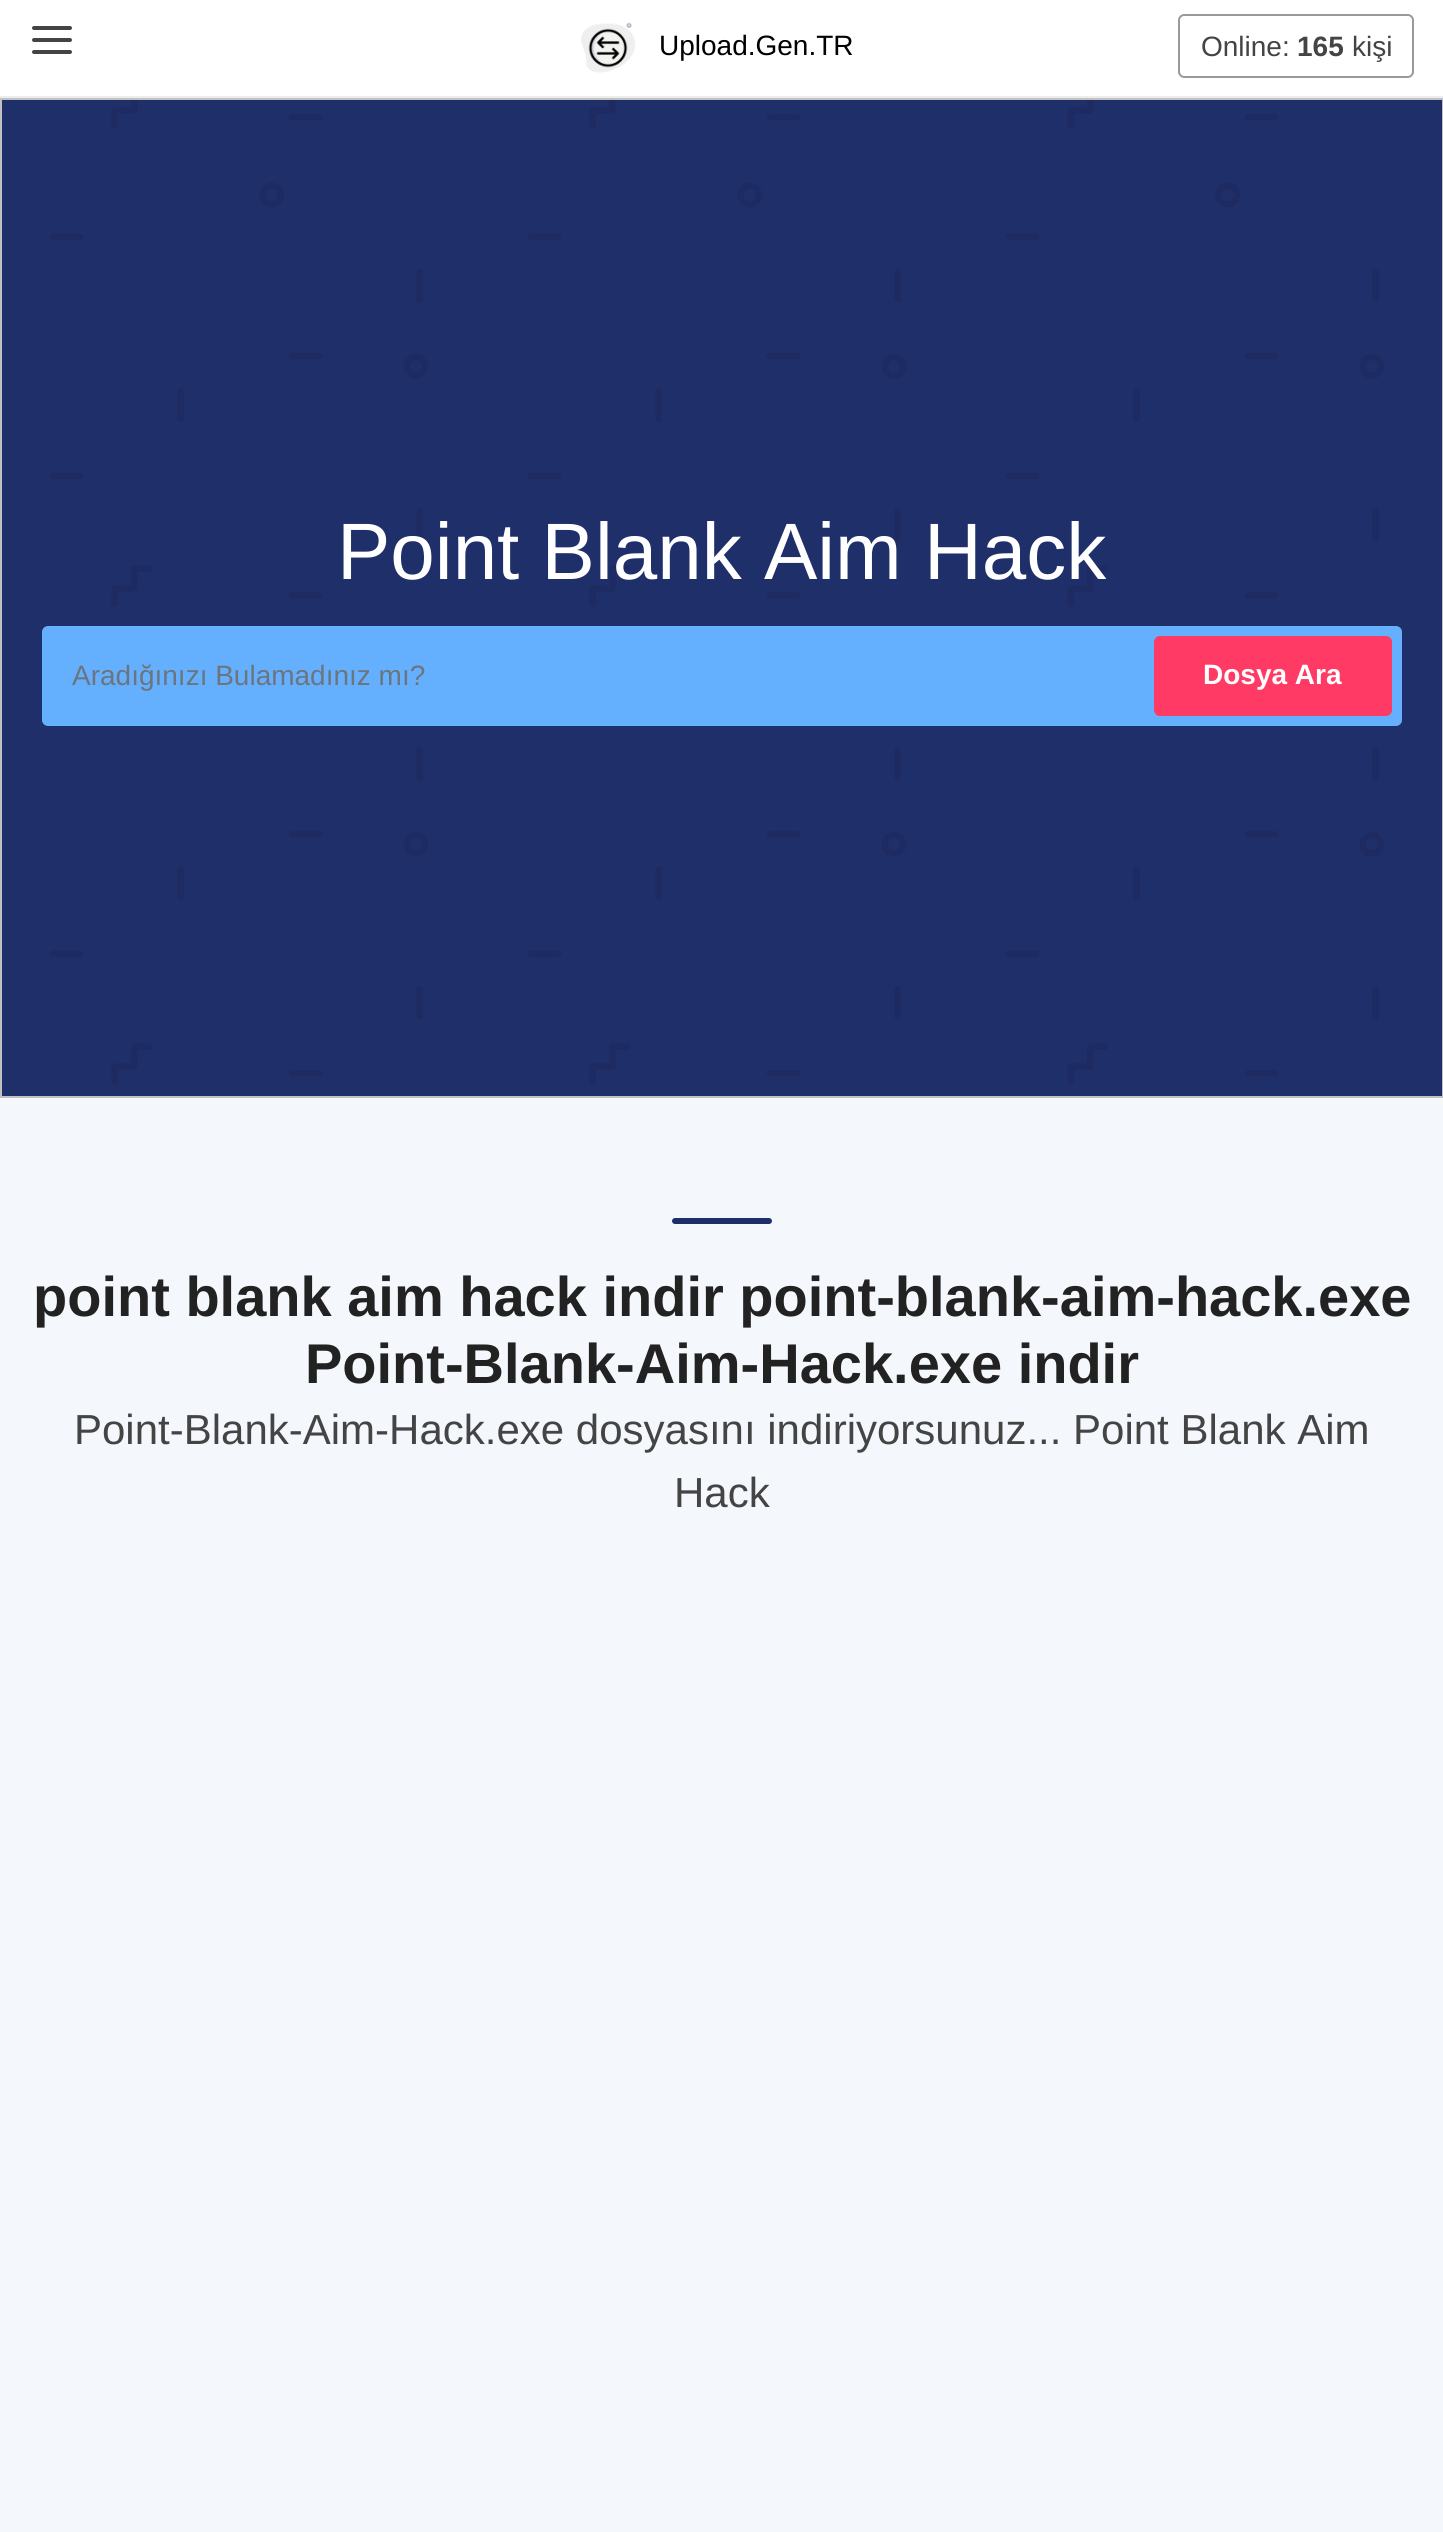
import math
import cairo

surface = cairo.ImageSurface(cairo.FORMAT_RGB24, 1443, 2532)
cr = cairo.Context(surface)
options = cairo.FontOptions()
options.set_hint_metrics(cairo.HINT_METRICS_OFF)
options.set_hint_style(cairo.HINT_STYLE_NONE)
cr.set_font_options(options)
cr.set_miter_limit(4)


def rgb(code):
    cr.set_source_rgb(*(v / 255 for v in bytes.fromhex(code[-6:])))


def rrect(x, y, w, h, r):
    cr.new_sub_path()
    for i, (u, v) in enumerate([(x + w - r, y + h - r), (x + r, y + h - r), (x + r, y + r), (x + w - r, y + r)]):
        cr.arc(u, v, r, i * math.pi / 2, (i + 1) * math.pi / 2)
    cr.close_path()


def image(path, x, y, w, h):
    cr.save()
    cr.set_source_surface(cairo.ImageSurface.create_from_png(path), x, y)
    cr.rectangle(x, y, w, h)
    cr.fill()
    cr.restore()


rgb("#ffffff")
cr.paint()
rgb("#ededed")
cr.rectangle(0, 96, 1443, 2)
cr.fill()
image("img/1.png", 32, 26, 40, 28)
image("img/2.png", 581, 22, 54, 51)
rgb("#999999")
cr.set_fill_rule(cairo.FILL_RULE_EVEN_ODD)
cr.new_path()
cr.move_to(1184, 14)
cr.line_to(1298, 14)
cr.line_to(1298, 78)
cr.line_to(1184, 78)
cr.curve_to(1181, 78, 1178, 75, 1178, 72)
cr.line_to(1178, 20)
cr.curve_to(1178, 17, 1181, 14, 1184, 14)
cr.close_path()
cr.move_to(1184, 16)
cr.line_to(1298, 16)
cr.line_to(1298, 76)
cr.line_to(1184, 76)
cr.curve_to(1182, 76, 1180, 74, 1180, 72)
cr.line_to(1180, 20)
cr.curve_to(1180, 18, 1182, 16, 1184, 16)
cr.close_path()
cr.fill()
cr.rectangle(1298, 14, 54, 2)
cr.fill()
cr.rectangle(1298, 76, 54, 2)
cr.fill()
cr.new_path()
cr.move_to(1352, 14)
cr.line_to(1408, 14)
cr.curve_to(1411, 14, 1414, 17, 1414, 20)
cr.line_to(1414, 72)
cr.curve_to(1414, 75, 1411, 78, 1408, 78)
cr.line_to(1352, 78)
cr.close_path()
cr.move_to(1352, 16)
cr.line_to(1408, 16)
cr.curve_to(1410, 16, 1412, 18, 1412, 20)
cr.line_to(1412, 72)
cr.curve_to(1412, 74, 1410, 76, 1408, 76)
cr.line_to(1352, 76)
cr.close_path()
cr.fill()
rgb("#1f2f6a")
cr.rectangle(2, 100, 1440, 996)
cr.fill()
image("img/3.png", 50, 100, 1334, 985)
cr.rectangle(1, 99, 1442, 998)
rgb("#c1c1c1")
cr.stroke()
rgb("#64b0ff")
rrect(42, 626, 1360, 100, 6)
cr.fill()
rgb("#ff3a65")
rrect(1154, 636, 238, 80, 6)
cr.fill()
rgb("#f4f7fb")
cr.rectangle(0, 1098, 1443, 1434)
cr.fill()
rgb("#1f2f6a")
rrect(672, 1218, 100, 6, 3)
cr.fill()
cr.select_font_face("Liberation Sans")
cr.set_font_size(28)
rgb("#000000")
cr.move_to(659, 55)
cr.show_text("Upload.Gen.TR")
rgb("#444444")
cr.move_to(1201, 56)
cr.show_text("Online:")
cr.select_font_face("Liberation Sans", cairo.FONT_SLANT_NORMAL, cairo.FONT_WEIGHT_BOLD)
cr.move_to(1297, 56)
cr.show_text("165")
cr.select_font_face("Liberation Sans")
cr.move_to(1352, 56)
cr.show_text("kişi")
cr.set_font_size(80)
rgb("#ffffff")
cr.move_to(337, 579)
cr.show_text("Point Blank Aim Hack")
cr.set_font_size(28)
rgb("#6c757d")
cr.move_to(72, 685)
cr.show_text("Aradığınızı Bulamadınız mı?")
cr.select_font_face("Liberation Sans", cairo.FONT_SLANT_NORMAL, cairo.FONT_WEIGHT_BOLD)
rgb("#ffffff")
cr.move_to(1203, 684)
cr.show_text("Dosya Ara")
cr.set_font_size(56)
rgb("#222222")
cr.move_to(33, 1316)
cr.show_text("point blank aim hack indir point-blank-aim-hack.exe")
cr.move_to(305, 1383)
cr.show_text("Point-Blank-Aim-Hack.exe indir")
cr.select_font_face("Liberation Sans")
cr.set_font_size(42)
rgb("#444444")
cr.move_to(74, 1444)
cr.show_text("Point-Blank-Aim-Hack.exe dosyasını indiriyorsunuz... Point Blank Aim")
cr.move_to(674, 1507)
cr.show_text("Hack")
surface.write_to_png("page.png")
